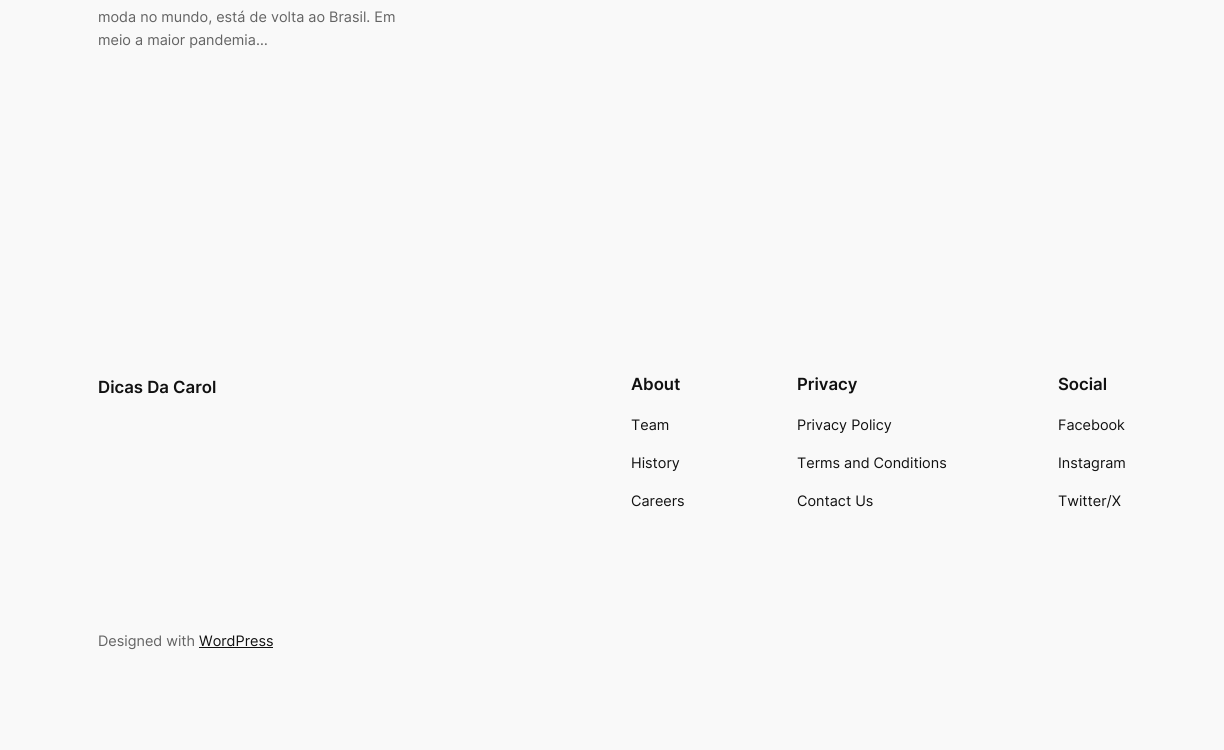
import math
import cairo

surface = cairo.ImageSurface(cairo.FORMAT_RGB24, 1224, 750)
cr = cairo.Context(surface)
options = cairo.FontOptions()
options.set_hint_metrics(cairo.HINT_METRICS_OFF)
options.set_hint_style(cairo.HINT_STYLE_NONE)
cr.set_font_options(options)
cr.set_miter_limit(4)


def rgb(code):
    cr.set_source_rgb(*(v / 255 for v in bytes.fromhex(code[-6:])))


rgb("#f9f9f9")
cr.paint()
rgb("#111111")
cr.rectangle(199, 647, 74, 1)
cr.fill()
cr.select_font_face("Inter")
cr.set_font_size(14.4)
rgb("#636363")
cr.move_to(98, 22)
cr.show_text("moda no mundo, está de volta ao Brasil. Em")
cr.move_to(98, 45)
cr.show_text("meio a maior pandemia…")
cr.select_font_face("Inter SemiBold")
cr.set_font_size(16.75)
rgb("#111111")
cr.move_to(98, 393)
cr.show_text("Dicas Da Carol")
cr.move_to(631, 390)
cr.show_text("About")
cr.select_font_face("Inter")
cr.set_font_size(14.4)
for x, y, s in [
    (631, 430, "Team"),
    (631, 468, "History"),
    (631, 506, "Careers"),
]:
    cr.move_to(x, y)
    cr.show_text(s)
cr.select_font_face("Inter SemiBold")
cr.set_font_size(16.75)
cr.move_to(797, 390)
cr.show_text("Privacy")
cr.select_font_face("Inter")
cr.set_font_size(14.4)
for x, y, s in [
    (797, 430, "Privacy Policy"),
    (797, 468, "Terms and Conditions"),
    (797, 506, "Contact Us"),
]:
    cr.move_to(x, y)
    cr.show_text(s)
cr.select_font_face("Inter SemiBold")
cr.set_font_size(16.75)
cr.move_to(1058, 390)
cr.show_text("Social")
cr.select_font_face("Inter")
cr.set_font_size(14.4)
for x, y, s in [
    (1058, 430, "Facebook"),
    (1058, 468, "Instagram"),
    (1058, 506, "Twitter/X"),
]:
    cr.move_to(x, y)
    cr.show_text(s)
rgb("#636363")
cr.move_to(98, 646)
cr.show_text("Designed with")
rgb("#111111")
cr.move_to(199, 646)
cr.show_text("WordPress")
surface.write_to_png("page.png")
